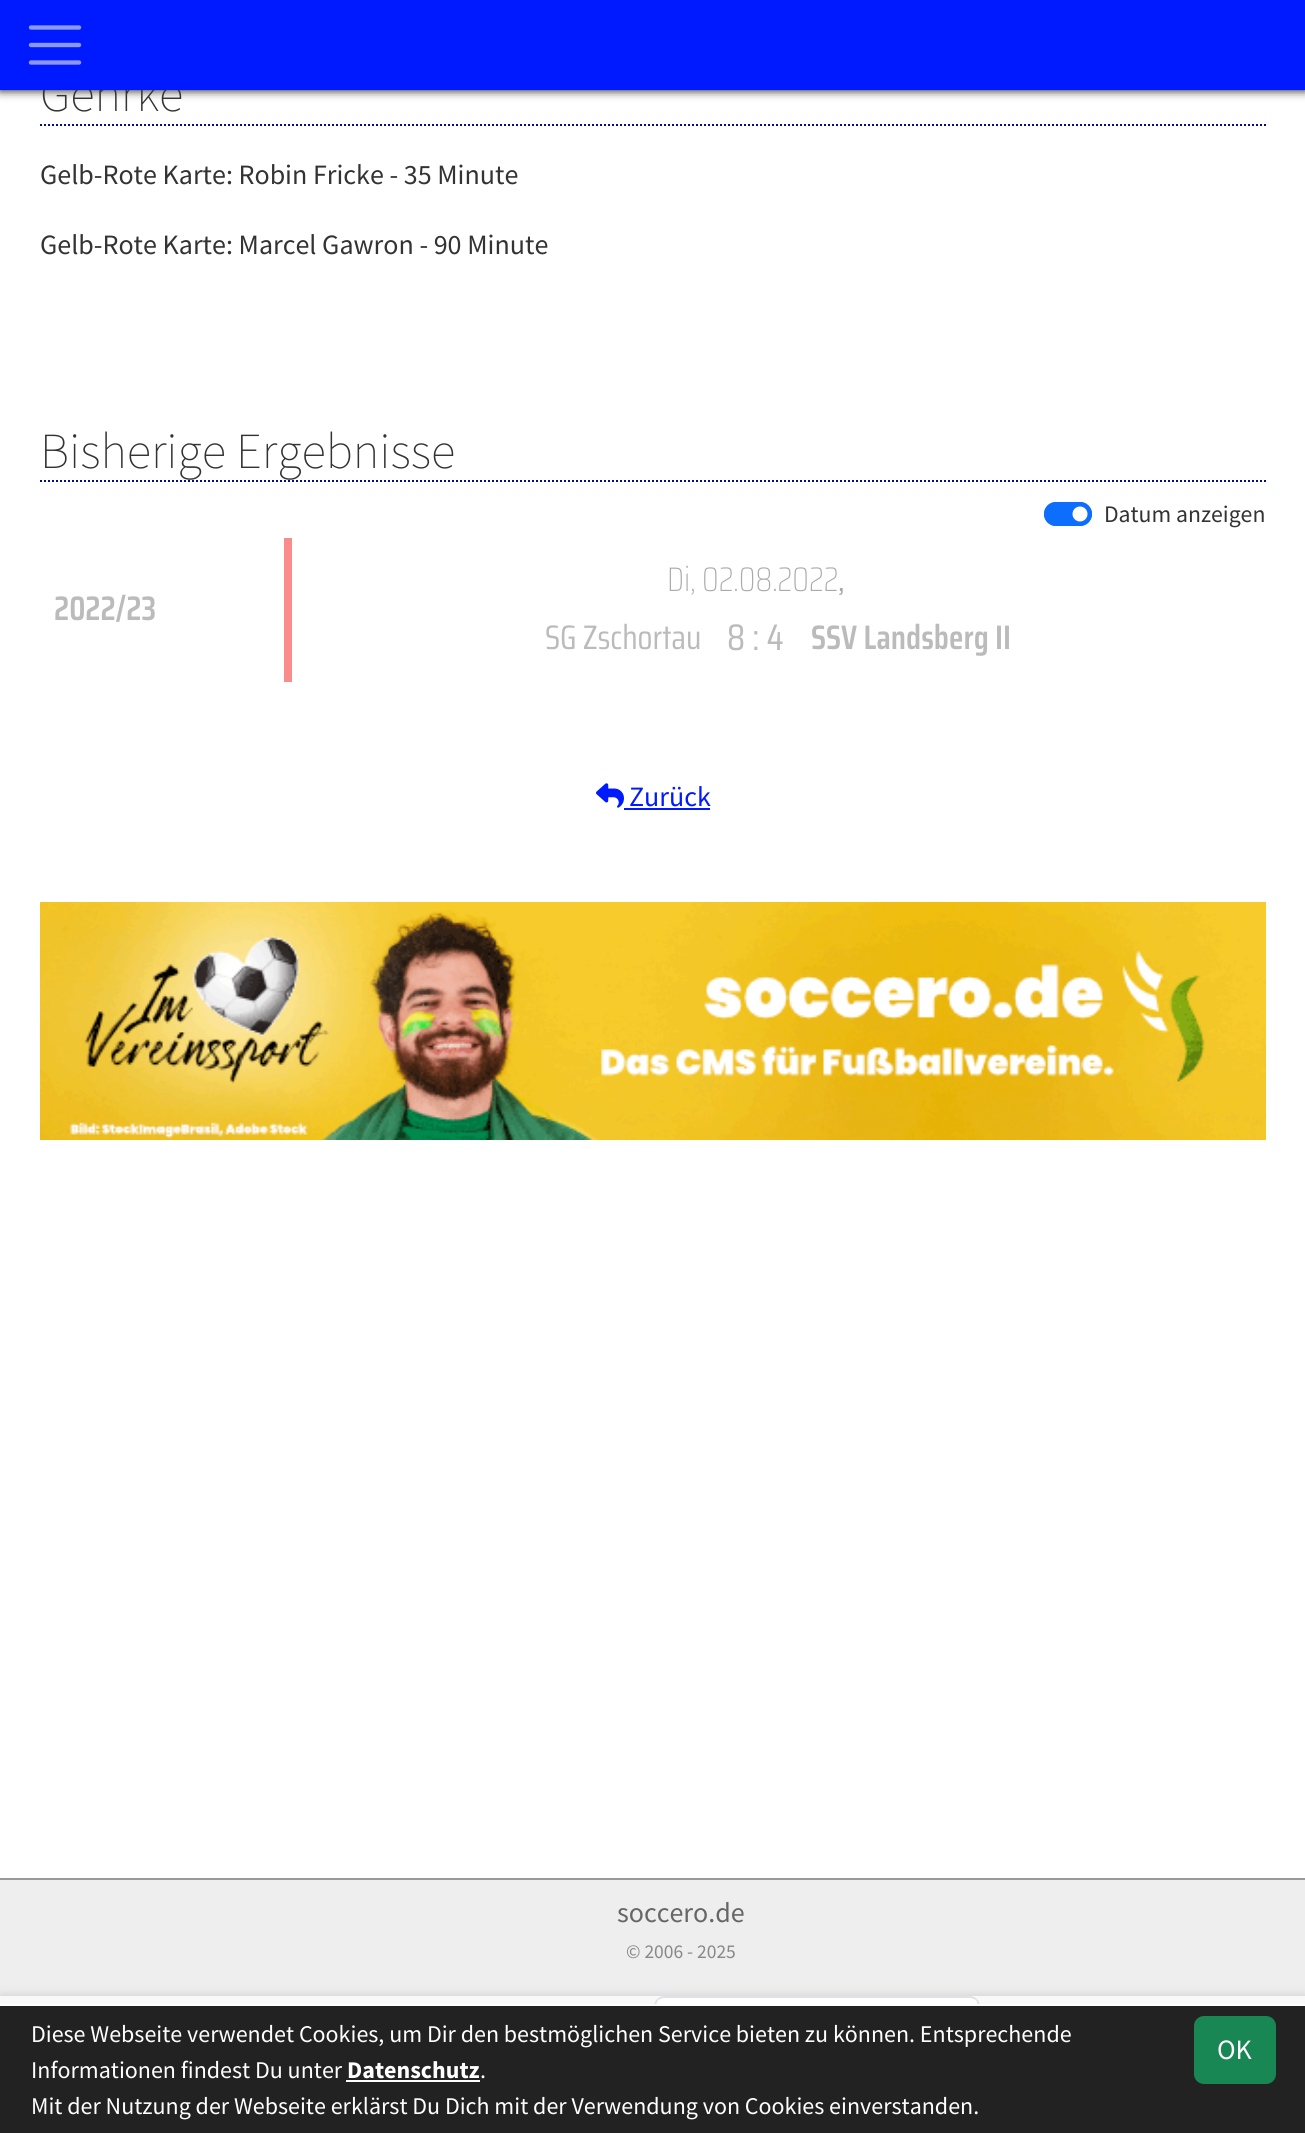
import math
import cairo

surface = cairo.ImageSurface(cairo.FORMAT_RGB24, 1305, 2133)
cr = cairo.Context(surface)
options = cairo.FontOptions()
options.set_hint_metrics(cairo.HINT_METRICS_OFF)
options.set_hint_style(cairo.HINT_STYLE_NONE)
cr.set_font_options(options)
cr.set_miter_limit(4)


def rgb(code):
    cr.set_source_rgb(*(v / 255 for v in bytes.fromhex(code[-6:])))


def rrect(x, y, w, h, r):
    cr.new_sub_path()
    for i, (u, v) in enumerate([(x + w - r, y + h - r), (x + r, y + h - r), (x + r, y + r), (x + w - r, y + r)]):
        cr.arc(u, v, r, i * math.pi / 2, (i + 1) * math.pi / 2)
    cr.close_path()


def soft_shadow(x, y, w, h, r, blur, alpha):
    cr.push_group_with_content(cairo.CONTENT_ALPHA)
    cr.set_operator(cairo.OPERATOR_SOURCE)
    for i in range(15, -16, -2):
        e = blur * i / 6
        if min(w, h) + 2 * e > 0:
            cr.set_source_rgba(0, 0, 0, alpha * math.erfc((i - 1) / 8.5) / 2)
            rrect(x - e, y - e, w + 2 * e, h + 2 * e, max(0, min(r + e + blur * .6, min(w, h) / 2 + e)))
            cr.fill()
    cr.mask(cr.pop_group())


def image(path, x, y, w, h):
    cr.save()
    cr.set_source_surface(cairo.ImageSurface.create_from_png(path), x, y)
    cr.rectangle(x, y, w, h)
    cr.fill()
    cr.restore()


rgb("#eeeeee")
cr.paint()
rgb("#ffffff")
cr.rectangle(0, 90, 1305, 1788)
cr.fill()
rgb("#000000")
soft_shadow(0, 0, 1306, 90, 0, 5, 1)
rgb("#999999")
cr.rectangle(0, 1878, 1305, 2)
cr.fill()
cr.new_path()
cr.move_to(40, 125)
cr.line_to(1266, 125)
rgb("#000d80")
cr.set_dash([2, 2])
cr.stroke()
cr.new_path()
cr.move_to(40, 481)
cr.line_to(1266, 481)
cr.stroke()
rgb("#0d6efd")
rrect(1044, 502, 48, 24, 12)
cr.fill()
rgb("#ffffff")
cr.arc(1080, 514, 7.5, 0, 2 * math.pi)
cr.fill()
rrect(1045, 503, 46, 22, 11)
rgb("#0d6efd")
cr.set_dash([])
cr.stroke()
rgb("#fa8c8c")
cr.rectangle(284, 538, 8, 144)
cr.fill()
image("img/1.png", 596, 783, 28, 25)
rgb("#001aff")
cr.rectangle(624, 808, 86, 2)
cr.fill()
image("img/2.png", 40, 902, 1226, 238)
rgb("#cccccc")
soft_shadow(0, 1996, 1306, 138, 0, 5, 1)
rgb("#f8f9fa")
cr.rectangle(0, 1996, 1305, 8)
cr.fill()
rgb("#ffffff")
cr.new_path()
cr.move_to(664, 1996)
cr.line_to(970, 1996)
cr.curve_to(975.5, 1996, 980, 2000.5, 980, 2006)
cr.line_to(980, 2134)
cr.line_to(654, 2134)
cr.line_to(654, 2006)
cr.curve_to(654, 2000.5, 658.5, 1996, 664, 1996)
cr.close_path()
cr.fill()
rgb("#dee2e6")
cr.new_path()
cr.move_to(664, 1996)
cr.curve_to(662, 1996, 659, 1997, 657, 1999)
cr.line_to(658, 2000)
cr.curve_to(660, 1999, 662, 1998, 664, 1998)
cr.line_to(970, 1998)
cr.curve_to(972, 1998, 974, 1999, 976, 2000)
cr.line_to(977, 1999)
cr.curve_to(975, 1997, 972, 1996, 970, 1996)
cr.close_path()
cr.fill()
cr.new_path()
cr.move_to(980, 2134)
cr.line_to(980, 2006)
cr.curve_to(980, 2004, 979, 2001, 977, 1999)
cr.line_to(976, 2000)
cr.curve_to(977, 2002, 978, 2004, 978, 2006)
cr.line_to(978, 2132)
cr.close_path()
cr.fill()
cr.new_path()
cr.move_to(654, 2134)
cr.line_to(656, 2132)
cr.line_to(656, 2006)
cr.curve_to(656, 2004, 657, 2002, 658, 2000)
cr.line_to(657, 1999)
cr.curve_to(655, 2001, 654, 2004, 654, 2006)
cr.close_path()
cr.fill()
for x, y, w, h, color in [
    (0, 2006, 1305, 127, "#222222"),
    (0, 2004, 1305, 2, "#ffffff"),
    (346, 2080, 134, 2, "#ffffff"),
]:
    rgb(color)
    cr.rectangle(x, y, w, h)
    cr.fill()
rgb("#198754")
rrect(1195, 2017, 80, 66, 9)
cr.fill_preserve()
cr.stroke()
cr.select_font_face("Source Sans Pro ExtraLight")
cr.set_font_size(50.5)
rgb("#333333")
cr.move_to(40, 111)
cr.show_text("Gehrke")
rgb("#001aff")
cr.rectangle(0, 0, 1305, 90)
cr.fill()
cr.new_path()
cr.move_to(31, 27.5)
cr.line_to(79, 27.5)
cr.move_to(31, 45)
cr.line_to(79, 45)
cr.move_to(31, 62.5)
cr.line_to(79, 62.5)
rgb("#8c98ff")
cr.set_line_width(4.4)
cr.set_line_cap(cairo.LINE_CAP_ROUND)
cr.stroke()
cr.select_font_face("Source Sans Pro")
cr.set_font_size(28)
rgb("#333333")
cr.move_to(40, 184)
cr.show_text("Gelb-Rote Karte: Robin Fricke - 35 Minute")
cr.move_to(40, 254)
cr.show_text("Gelb-Rote Karte: Marcel Gawron - 90 Minute")
cr.select_font_face("Source Sans Pro ExtraLight")
cr.set_font_size(50.5)
cr.move_to(40, 468)
cr.show_text("Bisherige Ergebnisse")
cr.select_font_face("Source Sans Pro")
cr.set_font_size(23.75)
cr.move_to(1104, 522)
cr.show_text("Datum anzeigen")
cr.select_font_face("Saira Condensed SemiBold")
cr.set_font_size(34)
rgb("#bbbbbb")
cr.move_to(54, 620)
cr.show_text("2022/23")
cr.select_font_face("Saira Condensed ExtraLight")
rgb("#aaaaaa")
cr.move_to(667, 591)
cr.show_text("Di, 02.08.2022")
cr.select_font_face("Saira Condensed")
cr.move_to(838, 591)
cr.show_text(",")
rgb("#bbbbbb")
cr.move_to(545, 649)
cr.show_text("SG Zschortau")
cr.set_font_size(37)
cr.move_to(727, 650)
cr.show_text("8 : 4")
cr.select_font_face("Saira Condensed SemiBold")
cr.set_font_size(34)
cr.move_to(811, 649)
cr.show_text("SSV Landsberg II")
cr.select_font_face("Source Sans Pro")
cr.set_font_size(28)
rgb("#001aff")
cr.move_to(629, 806)
cr.show_text("Zurück")
rgb("#666666")
cr.move_to(617, 1922)
cr.show_text("soccero.de")
cr.set_font_size(19.5)
rgb("#888888")
cr.move_to(626, 1958)
cr.show_text("© 2006 - 2025")
cr.set_font_size(24)
rgb("#ffffff")
cr.move_to(31, 2042)
cr.show_text("Diese Webseite verwendet Cookies, um Dir den bestmöglichen Service bieten zu können. Entsprechende")
cr.move_to(31, 2078)
cr.show_text("Informationen findest Du unter")
cr.select_font_face("Source Sans Pro", cairo.FONT_SLANT_NORMAL, cairo.FONT_WEIGHT_BOLD)
cr.move_to(347, 2078)
cr.show_text("Datenschutz")
cr.select_font_face("Source Sans Pro")
cr.move_to(480, 2078)
cr.show_text(".")
cr.move_to(31, 2114)
cr.show_text("Mit der Nutzung der Webseite erklärst Du Dich mit der Verwendung von Cookies einverstanden.")
cr.set_font_size(28)
cr.move_to(1217, 2059)
cr.show_text("OK")
surface.write_to_png("page.png")
